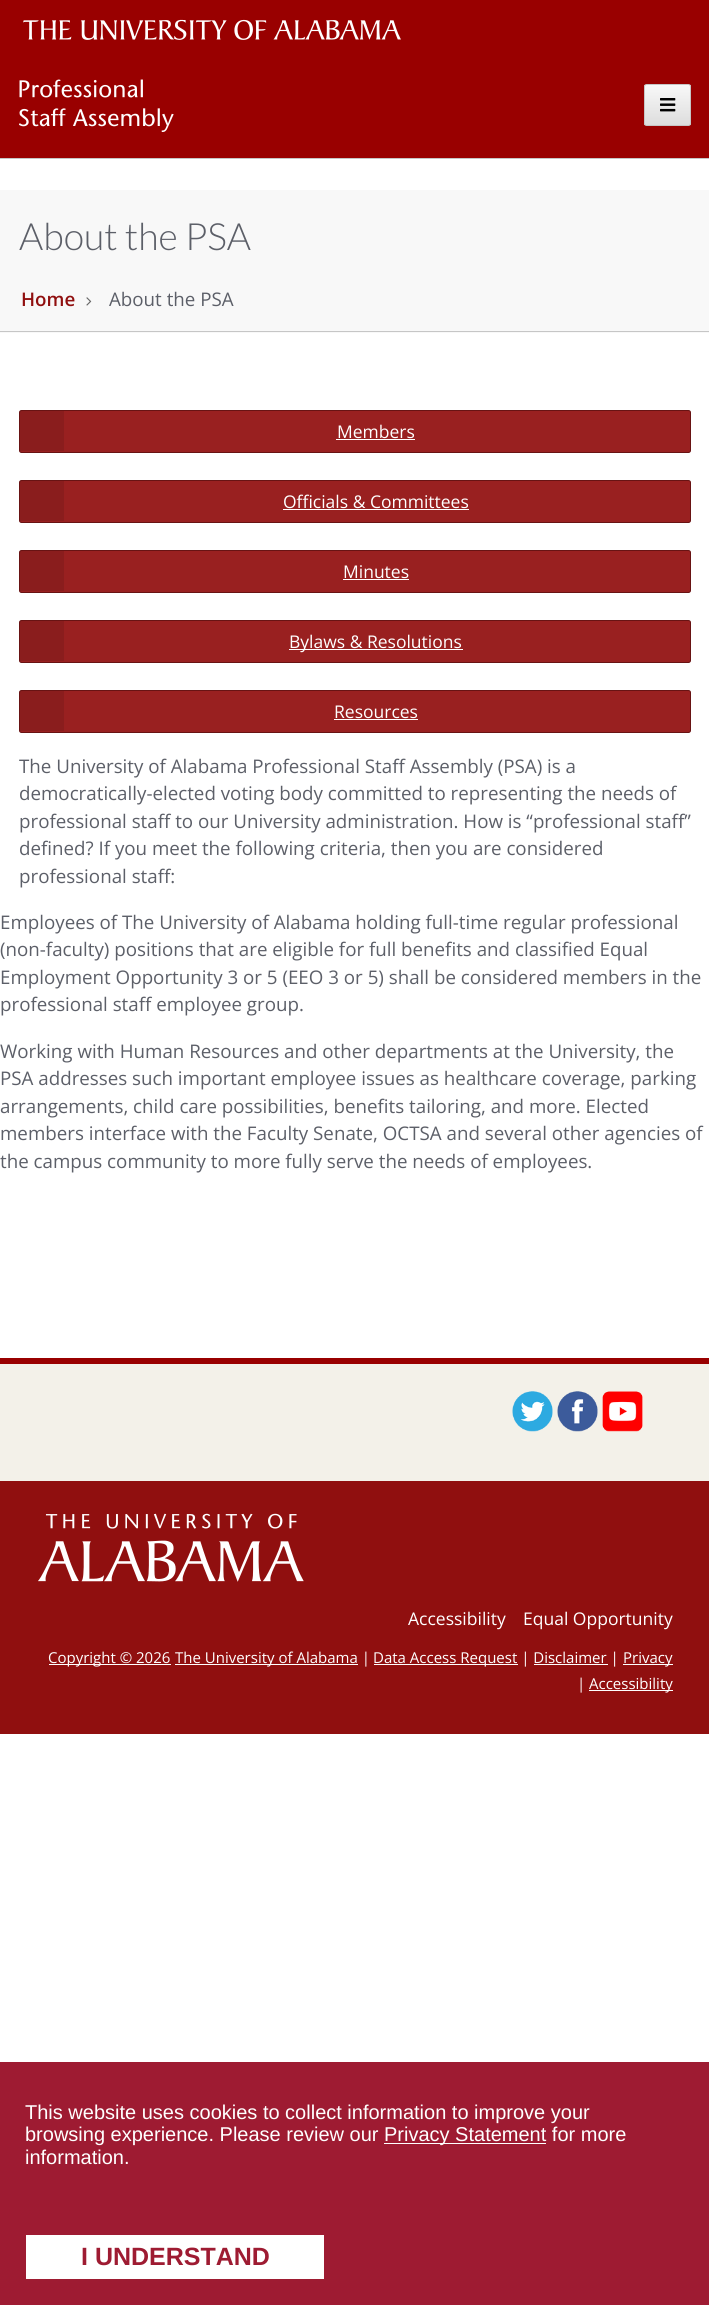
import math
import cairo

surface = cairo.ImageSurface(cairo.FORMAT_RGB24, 709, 2305)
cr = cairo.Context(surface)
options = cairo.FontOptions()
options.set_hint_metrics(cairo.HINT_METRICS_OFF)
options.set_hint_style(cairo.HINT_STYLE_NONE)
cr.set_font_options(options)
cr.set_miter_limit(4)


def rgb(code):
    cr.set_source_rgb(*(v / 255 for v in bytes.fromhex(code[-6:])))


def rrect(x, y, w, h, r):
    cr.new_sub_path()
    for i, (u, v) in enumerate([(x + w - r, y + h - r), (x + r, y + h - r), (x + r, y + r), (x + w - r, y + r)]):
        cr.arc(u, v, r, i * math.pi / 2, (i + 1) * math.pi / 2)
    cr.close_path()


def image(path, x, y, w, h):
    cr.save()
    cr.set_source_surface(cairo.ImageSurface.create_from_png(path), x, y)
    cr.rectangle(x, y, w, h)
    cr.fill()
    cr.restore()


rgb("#ffffff")
cr.paint()
rgb("#990000")
cr.rectangle(0, 0, 709, 158)
cr.fill()
image("img/1.png", 23, 19, 378, 21)
rgb("#c6c6c6")
cr.rectangle(0, 158, 709, 1)
cr.fill()
image("img/2.png", 19, 79, 155, 53)
cr.save()
rrect(644, 84, 47, 42, 2.5)
cr.clip()
gradient = cairo.LinearGradient(668, 85, 668, 125)
gradient.add_color_stop_rgba(0, 0.973, 0.973, 0.973, 1)
gradient.add_color_stop_rgba(1, 0.867, 0.867, 0.867, 1)
cr.set_source(gradient)
cr.rectangle(644, 85, 47, 40)
cr.fill()
cr.restore()
rrect(644.5, 84.5, 46, 41, 2)
cr.set_line_width(1)
cr.stroke()
image("img/3.png", 660, 98, 16, 14)
rgb("#f8f8f8")
cr.rectangle(0, 190, 709, 143)
cr.fill()
rgb("#c6c6c6")
cr.rectangle(0, 331, 709, 1)
cr.fill()
image("img/4.png", 86, 297, 6, 9)
rgb("#992020")
rrect(19.5, 410.5, 671, 42, 2)
cr.fill_preserve()
rgb("#681313")
cr.stroke()
cr.set_source_rgba(0, 0, 0, 0.1)
cr.rectangle(20, 411, 44, 40)
cr.fill()
rgb("#ffffff")
cr.rectangle(336, 439, 79, 1)
cr.fill()
rgb("#992020")
rrect(19.5, 480.5, 671, 42, 2)
cr.fill_preserve()
rgb("#681313")
cr.stroke()
cr.set_source_rgba(0, 0, 0, 0.1)
cr.rectangle(20, 481, 44, 40)
cr.fill()
rgb("#ffffff")
cr.rectangle(283, 509, 186, 1)
cr.fill()
rgb("#992020")
rrect(19.5, 550.5, 671, 42, 2)
cr.fill_preserve()
rgb("#681313")
cr.stroke()
cr.set_source_rgba(0, 0, 0, 0.1)
cr.rectangle(20, 551, 44, 40)
cr.fill()
rgb("#ffffff")
cr.rectangle(343, 579, 66, 1)
cr.fill()
rgb("#992020")
rrect(19.5, 620.5, 671, 42, 2)
cr.fill_preserve()
rgb("#681313")
cr.stroke()
cr.set_source_rgba(0, 0, 0, 0.1)
cr.rectangle(20, 621, 44, 40)
cr.fill()
rgb("#ffffff")
cr.rectangle(289, 649, 174, 1)
cr.fill()
rgb("#992020")
rrect(19.5, 690.5, 671, 42, 2)
cr.fill_preserve()
rgb("#681313")
cr.stroke()
cr.set_source_rgba(0, 0, 0, 0.1)
cr.rectangle(20, 691, 44, 40)
cr.fill()
rgb("#ffffff")
cr.rectangle(334, 719, 84, 1)
cr.fill()
rgb("#f3f1e9")
cr.rectangle(0, 1364, 709, 117)
cr.fill()
rgb("#990000")
cr.rectangle(0, 1358, 709, 6)
cr.fill()
image("img/5.png", 512, 1391, 41, 41)
image("img/6.png", 557, 1391, 41, 41)
image("img/7.png", 602, 1391, 41, 41)
rgb("#900f0f")
cr.rectangle(0, 1481, 709, 253)
cr.fill()
image("img/8.png", 38, 1513, 266, 69)
for x, y, w, h, color in [
    (49, 1664, 122, 1, "#ffffff"),
    (175, 1664, 183, 1, "#ffffff"),
    (374, 1664, 144, 1, "#ffffff"),
    (623, 1664, 50, 1, "#ffffff"),
    (534, 1664, 74, 1, "#ffffff"),
    (589, 1690, 84, 1, "#ffffff"),
    (0, 2062, 709, 243, "#9e1b32"),
    (384, 2143, 162, 1, "#ffffff"),
    (26, 2235, 298, 44, "#ffffff"),
]:
    rgb(color)
    cr.rectangle(x, y, w, h)
    cr.fill()
cr.select_font_face("Lato Light")
cr.set_font_size(37.5)
rgb("#5c5f68")
cr.move_to(19, 250)
cr.show_text("About the PSA")
cr.select_font_face("Open Sans SemiBold")
cr.set_font_size(18.75)
rgb("#900f0f")
cr.move_to(21, 306)
cr.show_text("Home")
cr.select_font_face("Open Sans")
rgb("#5c5f68")
cr.move_to(109, 306)
cr.show_text("About the PSA")
cr.set_font_size(17.5)
rgb("#ffffff")
for x, y, s in [
    (337, 438, "Members"),
    (283, 508, "Officials & Committees"),
    (343, 578, "Minutes"),
    (289, 648, "Bylaws & Resolutions"),
    (334, 718, "Resources"),
]:
    cr.move_to(x, y)
    cr.show_text(s)
cr.set_font_size(18.75)
rgb("#5c5f68")
for x, y, s in [
    (19, 773, "The University of Alabama Professional Staff Assembly (PSA) is a"),
    (19, 800, "democratically-elected voting body committed to representing the needs of"),
    (19, 828, "professional staff to our University administration. How is “professional staff”"),
    (19, 855, "defined? If you meet the following criteria, then you are considered"),
    (19, 883, "professional staff:"),
    (0, 929, "Employees of The University of Alabama holding full-time regular professional"),
    (0, 956, "(non-faculty) positions that are eligible for full benefits and classified Equal"),
    (0, 984, "Employment Opportunity 3 or 5 (EEO 3 or 5) shall be considered members in the"),
    (0, 1011, "professional staff employee group."),
    (0, 1058, "Working with Human Resources and other departments at the University, the"),
    (0, 1085, "PSA addresses such important employee issues as healthcare coverage, parking"),
    (0, 1113, "arrangements, child care possibilities, benefits tailoring, and more. Elected"),
    (0, 1140, "members interface with the Faculty Senate, OCTSA and several other agencies of"),
    (0, 1168, "the campus community to more fully serve the needs of employees."),
]:
    cr.move_to(x, y)
    cr.show_text(s)
cr.set_font_size(17.5)
rgb("#ffffff")
cr.move_to(408, 1625)
cr.show_text("Accessibility")
cr.move_to(523, 1625)
cr.show_text("Equal Opportunity")
cr.set_font_size(15)
for x, y, s in [
    (48, 1663, "Copyright © 2026"),
    (175, 1663, "The University of Alabama |"),
    (373, 1663, "Data Access Request | Disclaimer |"),
    (623, 1663, "Privacy"),
    (577, 1689, "|"),
    (589, 1689, "Accessibility"),
]:
    cr.move_to(x, y)
    cr.show_text(s)
cr.select_font_face("Liberation Sans")
cr.set_font_size(20)
for x, y, s in [
    (25, 2119, "This website uses cookies to collect information to improve your"),
    (25, 2141, "browsing experience. Please review our"),
    (384, 2141, "Privacy Statement for more"),
    (25, 2164, "information."),
]:
    cr.move_to(x, y)
    cr.show_text(s)
cr.select_font_face("Liberation Sans", cairo.FONT_SLANT_NORMAL, cairo.FONT_WEIGHT_BOLD)
cr.set_font_size(25)
rgb("#9e1b32")
cr.move_to(81, 2265)
cr.show_text("I UNDERSTAND")
surface.write_to_png("page.png")
